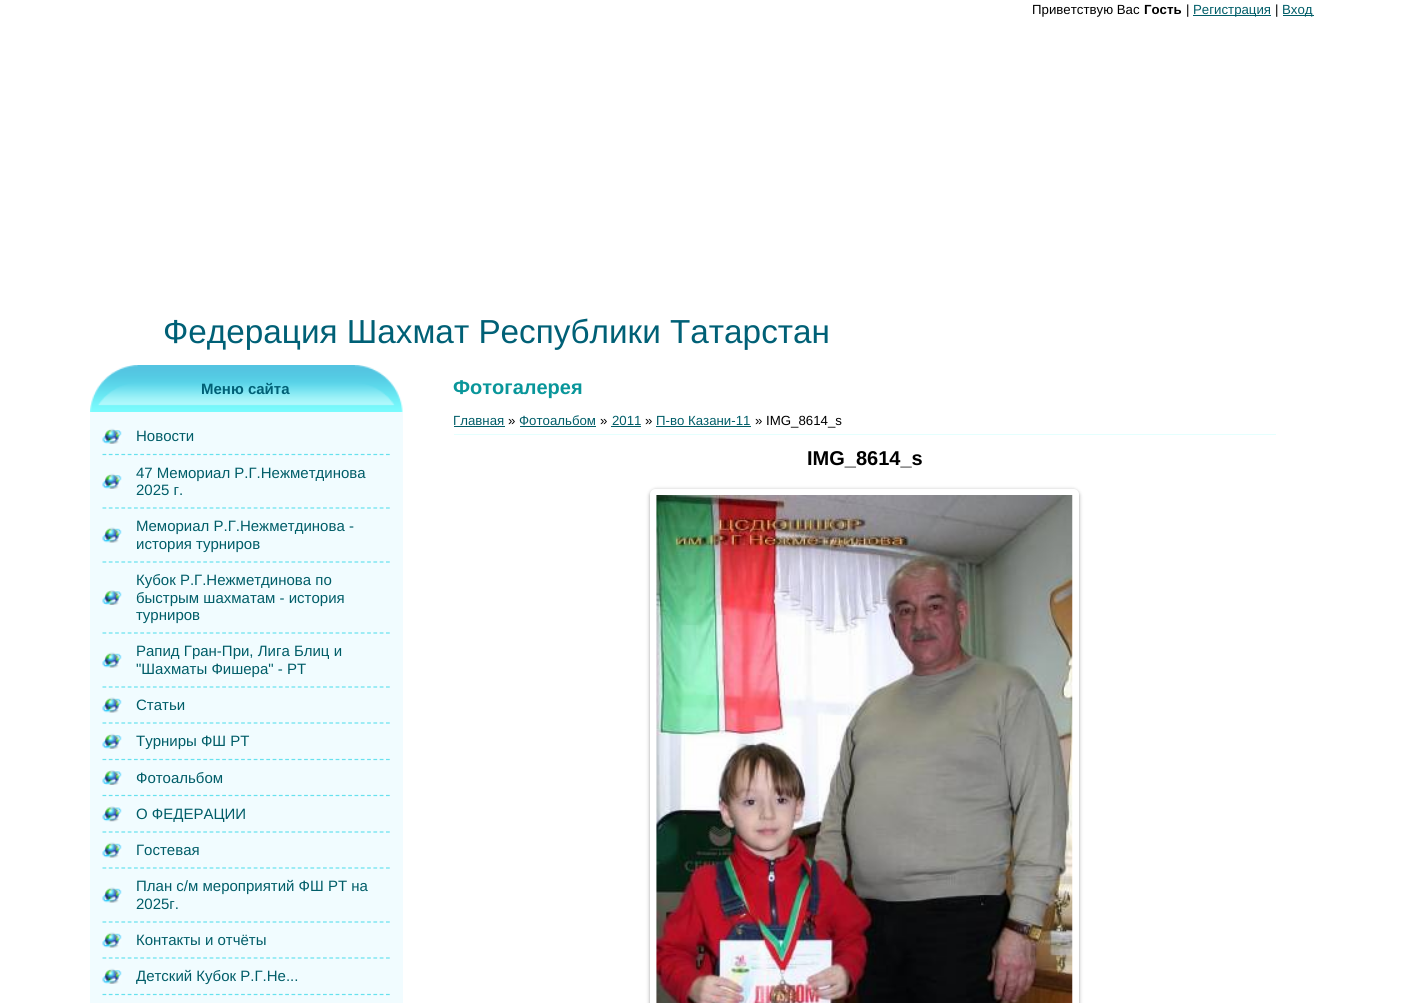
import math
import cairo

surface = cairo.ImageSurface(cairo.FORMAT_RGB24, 1401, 1003)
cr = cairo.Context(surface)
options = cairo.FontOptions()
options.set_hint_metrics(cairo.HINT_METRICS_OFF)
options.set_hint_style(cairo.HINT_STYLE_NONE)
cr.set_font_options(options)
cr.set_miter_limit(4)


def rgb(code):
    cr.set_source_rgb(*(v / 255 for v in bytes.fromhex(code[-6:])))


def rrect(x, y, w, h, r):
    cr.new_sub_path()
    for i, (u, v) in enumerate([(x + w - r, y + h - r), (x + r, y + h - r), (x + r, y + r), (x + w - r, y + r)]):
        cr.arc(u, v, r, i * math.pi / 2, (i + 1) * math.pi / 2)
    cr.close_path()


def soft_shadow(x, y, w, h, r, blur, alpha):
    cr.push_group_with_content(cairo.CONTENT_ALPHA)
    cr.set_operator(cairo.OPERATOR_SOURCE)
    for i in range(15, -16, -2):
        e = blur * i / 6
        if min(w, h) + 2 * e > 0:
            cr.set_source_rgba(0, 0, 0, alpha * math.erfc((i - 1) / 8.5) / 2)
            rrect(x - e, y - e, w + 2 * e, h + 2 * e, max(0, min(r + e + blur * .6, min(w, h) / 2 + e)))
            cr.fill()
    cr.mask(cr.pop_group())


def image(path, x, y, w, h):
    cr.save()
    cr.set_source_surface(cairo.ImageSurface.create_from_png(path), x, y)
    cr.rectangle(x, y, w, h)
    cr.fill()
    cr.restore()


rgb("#ffffff")
cr.paint()
rgb("#005d68")
cr.rectangle(1193, 15, 78, 1)
cr.fill()
cr.rectangle(1283, 15, 31, 1)
cr.fill()
image("img/1.png", 90, 365, 313, 47)
rgb("#f1fcff")
cr.rectangle(90, 412, 313, 591)
cr.fill()
image("img/2.png", 102, 428, 20, 16)
cr.new_path()
cr.move_to(102.5, 454.5)
cr.line_to(390, 454.5)
rgb("#67e1ee")
cr.set_line_width(1.2)
cr.set_dash([3.75, 2.55])
cr.stroke()
image("img/2.png", 102, 473, 20, 16)
cr.new_path()
cr.move_to(102.5, 508)
cr.line_to(390, 508)
cr.stroke()
image("img/3.png", 102, 527, 20, 16)
cr.new_path()
cr.move_to(102.5, 562)
cr.line_to(390, 562)
cr.stroke()
image("img/4.png", 102, 590, 20, 15)
cr.new_path()
cr.move_to(102.5, 633)
cr.line_to(390, 633)
cr.stroke()
image("img/3.png", 102, 652, 20, 16)
cr.new_path()
cr.move_to(102.5, 687)
cr.line_to(390, 687)
cr.stroke()
image("img/3.png", 102, 697, 20, 16)
cr.new_path()
cr.move_to(102.5, 723)
cr.line_to(390, 723)
cr.stroke()
image("img/2.png", 102, 733, 20, 16)
cr.new_path()
cr.move_to(102.5, 759.5)
cr.line_to(390, 759.5)
cr.stroke()
image("img/4.png", 102, 770, 20, 15)
cr.new_path()
cr.move_to(102.5, 795.5)
cr.line_to(390, 795.5)
cr.stroke()
image("img/5.png", 102, 806, 20, 16)
cr.new_path()
cr.move_to(102.5, 832)
cr.line_to(390, 832)
cr.stroke()
image("img/3.png", 102, 842, 20, 16)
cr.new_path()
cr.move_to(102.5, 868)
cr.line_to(390, 868)
cr.stroke()
image("img/3.png", 102, 887, 20, 16)
cr.new_path()
cr.move_to(102.5, 922)
cr.line_to(390, 922)
cr.stroke()
image("img/3.png", 102, 932, 20, 16)
cr.new_path()
cr.move_to(102.5, 958)
cr.line_to(390, 958)
cr.stroke()
image("img/2.png", 102, 968, 20, 16)
cr.new_path()
cr.move_to(102.5, 994.5)
cr.line_to(390, 994.5)
cr.stroke()
for x, y, w, h, color in [
    (454, 426, 51, 1, "#005d68"),
    (520, 426, 76, 1, "#005d68"),
    (611, 426, 30, 1, "#005d68"),
    (656, 426, 95, 1, "#005d68"),
    (454, 434, 822, 1, "#e5fffe"),
]:
    rgb(color)
    cr.rectangle(x, y, w, h)
    cr.fill()
cr.save()
cr.set_fill_rule(cairo.FILL_RULE_EVEN_ODD)
cr.new_path()
cr.move_to(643, 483)
cr.line_to(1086, 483)
cr.line_to(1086, 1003)
cr.line_to(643, 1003)
cr.close_path()
cr.move_to(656, 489)
cr.line_to(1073, 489)
cr.curve_to(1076.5, 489, 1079, 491.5, 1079, 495)
cr.line_to(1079, 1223)
cr.curve_to(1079, 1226.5, 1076.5, 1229, 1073, 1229)
cr.line_to(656, 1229)
cr.curve_to(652.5, 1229, 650, 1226.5, 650, 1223)
cr.line_to(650, 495)
cr.curve_to(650, 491.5, 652.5, 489, 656, 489)
cr.close_path()
cr.clip()
rgb("#000000")
soft_shadow(650, 490, 429, 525, 6, 2, 0.37)
cr.restore()
image("img/6.png", 656, 495, 417, 508)
cr.select_font_face("Liberation Sans")
cr.set_font_size(13.25)
rgb("#000000")
cr.move_to(1032, 14)
cr.show_text("Приветствую Вас")
cr.select_font_face("Liberation Sans", cairo.FONT_SLANT_NORMAL, cairo.FONT_WEIGHT_BOLD)
cr.move_to(1144, 14)
cr.show_text("Гость")
cr.select_font_face("Liberation Sans")
cr.move_to(1186, 14)
cr.show_text("|")
rgb("#005d68")
cr.move_to(1193, 14)
cr.show_text("Регистрация")
rgb("#000000")
cr.move_to(1275, 14)
cr.show_text("|")
rgb("#005d68")
cr.move_to(1282, 14)
cr.show_text("Вход")
cr.set_font_size(33.3)
rgb("#006076")
cr.move_to(163, 343)
cr.show_text("Федерация Шахмат Республики Татарстан")
cr.select_font_face("Liberation Sans", cairo.FONT_SLANT_NORMAL, cairo.FONT_WEIGHT_BOLD)
cr.set_font_size(15)
cr.move_to(201, 394)
cr.show_text("Меню сайта")
cr.select_font_face("Liberation Sans")
rgb("#005d68")
for x, y, s in [
    (136, 441, "Новости"),
    (136, 478, "47 Мемориал Р.Г.Нежметдинова"),
    (136, 495, "2025 г."),
    (136, 531, "Мемориал Р.Г.Нежметдинова -"),
    (136, 549, "история турниров"),
    (136, 585, "Кубок Р.Г.Нежметдинова по"),
    (136, 603, "быстрым шахматам - история"),
    (136, 620, "турниров"),
    (136, 656, "Рапид Гран-При, Лига Блиц и"),
    (136, 674, "\"Шахматы Фишера\" - РТ"),
    (136, 710, "Статьи"),
    (136, 746, "Турниры ФШ РТ"),
    (136, 783, "Фотоальбом"),
    (136, 819, "О ФЕДЕРАЦИИ"),
    (136, 855, "Гостевая"),
    (136, 891, "План с/м мероприятий ФШ РТ на"),
    (136, 909, "2025г."),
    (136, 945, "Контакты и отчёты"),
    (136, 981, "Детский Кубок Р.Г.Не..."),
]:
    cr.move_to(x, y)
    cr.show_text(s)
cr.select_font_face("Liberation Sans", cairo.FONT_SLANT_NORMAL, cairo.FONT_WEIGHT_BOLD)
cr.set_font_size(20)
rgb("#09969a")
cr.move_to(453, 394)
cr.show_text("Фотогалерея")
cr.select_font_face("Liberation Sans")
cr.set_font_size(13.25)
rgb("#005d68")
cr.move_to(453, 425)
cr.show_text("Главная")
rgb("#000000")
cr.move_to(508, 425)
cr.show_text("»")
rgb("#005d68")
cr.move_to(519, 425)
cr.show_text("Фотоальбом")
rgb("#000000")
cr.move_to(600, 425)
cr.show_text("»")
rgb("#005d68")
cr.move_to(612, 425)
cr.show_text("2011")
rgb("#000000")
cr.move_to(645, 425)
cr.show_text("»")
rgb("#005d68")
cr.move_to(656, 425)
cr.show_text("П-во Казани-11")
rgb("#000000")
cr.move_to(755, 425)
cr.show_text("» IMG_8614_s")
cr.select_font_face("Liberation Sans", cairo.FONT_SLANT_NORMAL, cairo.FONT_WEIGHT_BOLD)
cr.set_font_size(20)
cr.move_to(807, 465)
cr.show_text("IMG_8614_s")
surface.write_to_png("page.png")
